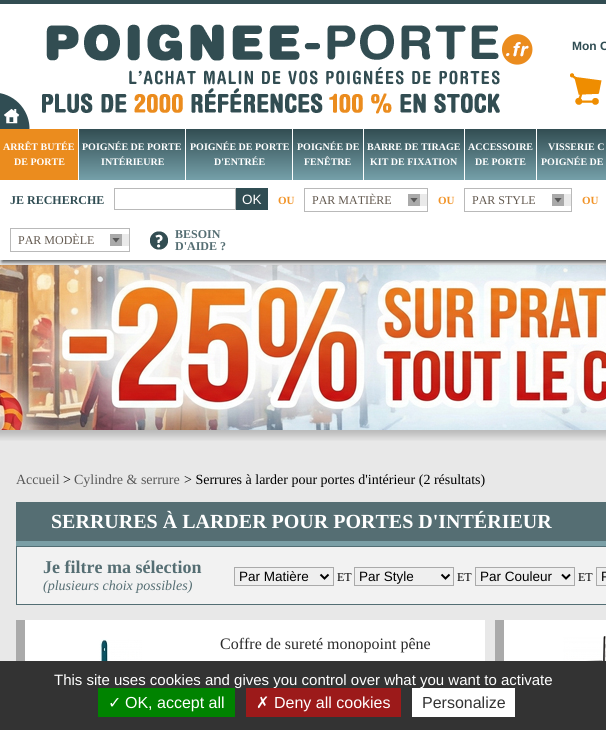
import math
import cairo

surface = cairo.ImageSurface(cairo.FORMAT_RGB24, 606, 730)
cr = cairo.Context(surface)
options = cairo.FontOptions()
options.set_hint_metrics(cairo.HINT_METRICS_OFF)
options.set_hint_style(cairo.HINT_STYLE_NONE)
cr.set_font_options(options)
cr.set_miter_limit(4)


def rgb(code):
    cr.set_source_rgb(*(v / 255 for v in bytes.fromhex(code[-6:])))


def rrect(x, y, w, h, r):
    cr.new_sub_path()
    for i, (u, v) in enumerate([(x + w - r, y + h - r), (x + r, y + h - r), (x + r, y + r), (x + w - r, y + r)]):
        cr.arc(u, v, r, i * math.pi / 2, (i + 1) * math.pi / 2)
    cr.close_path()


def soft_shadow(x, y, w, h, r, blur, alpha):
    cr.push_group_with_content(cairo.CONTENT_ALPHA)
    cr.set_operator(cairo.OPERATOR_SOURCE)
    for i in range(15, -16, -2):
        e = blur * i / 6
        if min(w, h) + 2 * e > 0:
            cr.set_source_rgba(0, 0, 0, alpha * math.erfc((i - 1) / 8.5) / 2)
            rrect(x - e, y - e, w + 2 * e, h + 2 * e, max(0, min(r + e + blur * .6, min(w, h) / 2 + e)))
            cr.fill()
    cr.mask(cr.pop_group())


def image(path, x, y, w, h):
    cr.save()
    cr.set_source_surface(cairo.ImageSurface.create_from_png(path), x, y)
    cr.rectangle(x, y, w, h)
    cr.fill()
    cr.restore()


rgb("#e8e8e8")
cr.paint()
image("img/7.png", 0, 265, 606, 165)
rgb("#4c4c4c")
soft_shadow(2, 6, 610, 256, 0, 2, 1)
rgb("#ffffff")
cr.rectangle(0, 4, 606, 256)
cr.fill()
rgb("#324d52")
cr.rectangle(0, 0, 606, 4)
cr.fill()
image("img/1.png", 42, 24, 491, 90)
image("img/2.png", 570, 73, 32, 32)
image("img/3.png", 0, 93, 30, 36)
gradient = cairo.LinearGradient(490, 129, 490, 180)
gradient.add_color_stop_rgba(0, 0.196, 0.302, 0.322, 1)
gradient.add_color_stop_rgba(1, 0.459, 0.627, 0.663, 1)
cr.set_source(gradient)
cr.rectangle(79, 129, 527, 51)
cr.fill()
for x, y, w, h, color in [
    (0, 129, 78, 51, "#eb8c1e"),
    (185, 129, 1, 51, "#ffffff"),
    (292, 129, 1, 51, "#ffffff"),
    (363, 129, 1, 51, "#ffffff"),
    (464, 129, 1, 51, "#ffffff"),
    (536, 129, 1, 51, "#ffffff"),
]:
    rgb(color)
    cr.rectangle(x, y, w, h)
    cr.fill()
cr.rectangle(114.5, 188.5, 121, 21)
rgb("#b9b9b9")
cr.set_line_width(1)
cr.stroke()
rgb("#304d53")
cr.rectangle(236, 188, 32, 22)
cr.fill()
image("img/4.png", 408, 194, 19, 12)
cr.rectangle(304.5, 188.5, 123, 23)
rgb("#b9b9b9")
cr.stroke()
image("img/4.png", 552, 194, 19, 12)
cr.rectangle(464.5, 188.5, 107, 23)
cr.stroke()
image("img/4.png", 110, 234, 19, 12)
cr.rectangle(10.5, 228.5, 119, 23)
cr.stroke()
image("img/5.png", 150, 231, 18, 19)
image("img/6.png", 0, 430, 606, 11)
rgb("#556e73")
cr.rectangle(16, 502, 590, 39)
cr.fill()
rgb("#7b9fa6")
cr.rectangle(16, 541, 590, 5)
cr.fill()
rgb("#f2f2f2")
cr.rectangle(16.5, 546.5, 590, 58)
cr.fill_preserve()
rgb("#536e74")
cr.stroke()
rgb("#efefef")
cr.rectangle(234.5, 567.5, 99, 18)
cr.fill_preserve()
rgb("#aaaaaa")
cr.stroke()
cr.new_path()
cr.move_to(320.5, 574.5)
cr.line_to(324.5, 578.5)
cr.line_to(328.5, 574.5)
rgb("#000000")
cr.set_line_width(2)
cr.stroke()
rgb("#efefef")
cr.rectangle(354.5, 567.5, 99, 18)
cr.fill_preserve()
rgb("#aaaaaa")
cr.set_line_width(1)
cr.stroke()
cr.new_path()
cr.move_to(441.5, 574.5)
cr.line_to(445.5, 578.5)
cr.line_to(449.5, 574.5)
rgb("#000000")
cr.set_line_width(2)
cr.stroke()
rgb("#efefef")
cr.rectangle(475.5, 567.5, 99, 18)
cr.fill_preserve()
rgb("#aaaaaa")
cr.set_line_width(1)
cr.stroke()
cr.new_path()
cr.move_to(562, 574.5)
cr.line_to(566, 578.5)
cr.line_to(570, 574.5)
rgb("#000000")
cr.set_line_width(2)
cr.stroke()
rgb("#efefef")
cr.rectangle(596.5, 567.5, 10, 18)
cr.fill_preserve()
rgb("#aaaaaa")
cr.set_line_width(1)
cr.stroke()
rgb("#ffffff")
cr.rectangle(25, 620, 460, 41)
cr.fill()
rgb("#aaaaaa")
cr.rectangle(16, 620, 9, 41)
cr.fill()
image("img/8.png", 99, 639, 43, 22)
rgb("#ffffff")
cr.rectangle(504, 620, 102, 41)
cr.fill()
rgb("#aaaaaa")
cr.rectangle(495, 620, 9, 41)
cr.fill()
image("img/9.png", 563, 636, 43, 25)
rgb("#333333")
cr.rectangle(0, 661, 606, 69)
cr.fill()
rgb("#ffffff")
cr.rectangle(412, 688, 103, 29)
cr.fill()
cr.select_font_face("Liberation Sans", cairo.FONT_SLANT_NORMAL, cairo.FONT_WEIGHT_BOLD)
cr.set_font_size(12)
rgb("#304d53")
cr.move_to(572, 50)
cr.show_text("Mon C")
cr.select_font_face("Liberation Serif", cairo.FONT_SLANT_NORMAL, cairo.FONT_WEIGHT_BOLD)
cr.set_font_size(10)
rgb("#ffffff")
for x, y, s in [
    (3, 150, "ARRÊT BUTÉE"),
    (14, 165, "DE PORTE"),
    (82, 150, "POIGNÉE DE PORTE"),
    (101, 165, "INTÉRIEURE"),
    (190, 150, "POIGNÉE DE PORTE"),
    (214, 165, "D'ENTRÉE"),
    (297, 150, "POIGNÉE DE"),
    (304, 165, "FENÊTRE"),
    (367, 150, "BARRE DE TIRAGE"),
    (370, 165, "KIT DE FIXATION"),
    (468, 150, "ACCESSOIRE"),
    (475, 165, "DE PORTE"),
    (548, 150, "VISSERIE C"),
    (541, 165, "POIGNÉE DE"),
]:
    cr.move_to(x, y)
    cr.show_text(s)
cr.set_font_size(12)
rgb("#304d53")
cr.move_to(10, 204)
cr.show_text("JE RECHERCHE")
cr.select_font_face("Liberation Sans")
cr.set_font_size(13.5)
rgb("#ffffff")
cr.move_to(242, 204)
cr.show_text("OK")
cr.select_font_face("Liberation Serif", cairo.FONT_SLANT_NORMAL, cairo.FONT_WEIGHT_BOLD)
cr.set_font_size(11)
rgb("#f19327")
cr.move_to(278, 204)
cr.show_text("OU")
cr.select_font_face("Liberation Serif")
cr.set_font_size(12)
rgb("#63594f")
cr.move_to(312, 204)
cr.show_text("PAR MATIÈRE")
cr.select_font_face("Liberation Serif", cairo.FONT_SLANT_NORMAL, cairo.FONT_WEIGHT_BOLD)
cr.set_font_size(11)
rgb("#f19327")
cr.move_to(438, 204)
cr.show_text("OU")
cr.select_font_face("Liberation Serif")
cr.set_font_size(12)
rgb("#63594f")
cr.move_to(472, 204)
cr.show_text("PAR STYLE")
cr.select_font_face("Liberation Serif", cairo.FONT_SLANT_NORMAL, cairo.FONT_WEIGHT_BOLD)
cr.set_font_size(11)
rgb("#f19327")
cr.move_to(582, 204)
cr.show_text("OU")
cr.select_font_face("Liberation Serif")
cr.set_font_size(12)
rgb("#63594f")
cr.move_to(18, 244)
cr.show_text("PAR MODÈLE")
cr.select_font_face("Liberation Serif", cairo.FONT_SLANT_NORMAL, cairo.FONT_WEIGHT_BOLD)
rgb("#556e73")
cr.move_to(175, 238)
cr.show_text("BESOIN")
cr.move_to(175, 250)
cr.show_text("D'AIDE ?")
cr.select_font_face("Liberation Serif")
cr.set_font_size(14)
rgb("#585858")
cr.move_to(16, 484)
cr.show_text("Accueil")
rgb("#000000")
cr.move_to(63, 484)
cr.show_text(">")
rgb("#585858")
cr.move_to(74, 484)
cr.show_text("Cylindre & serrure")
rgb("#000000")
cr.move_to(184, 484)
cr.show_text("> Serrures à larder pour portes d'intérieur (2 résultats)")
cr.select_font_face("Liberation Serif", cairo.FONT_SLANT_NORMAL, cairo.FONT_WEIGHT_BOLD)
cr.set_font_size(20)
rgb("#ffffff")
cr.move_to(51, 528)
cr.show_text("SERRURES À LARDER POUR PORTES D'INTÉRIEUR")
cr.set_font_size(18)
rgb("#556e73")
cr.move_to(43, 573)
cr.show_text("Je filtre ma sélection")
cr.select_font_face("Liberation Serif", cairo.FONT_SLANT_ITALIC)
cr.set_font_size(14)
cr.move_to(43, 590)
cr.show_text("(plusieurs choix possibles)")
cr.select_font_face("Liberation Sans")
cr.set_font_size(13.5)
rgb("#000000")
cr.move_to(239, 581)
cr.show_text("Par Matière")
cr.select_font_face("Liberation Serif")
cr.set_font_size(12)
cr.move_to(337, 581)
cr.show_text("ET")
cr.select_font_face("Liberation Sans")
cr.set_font_size(13.5)
cr.move_to(359, 581)
cr.show_text("Par Style")
cr.select_font_face("Liberation Serif")
cr.set_font_size(12)
cr.move_to(457, 581)
cr.show_text("ET")
cr.select_font_face("Liberation Sans")
cr.set_font_size(13.5)
cr.move_to(480, 581)
cr.show_text("Par Couleur")
cr.select_font_face("Liberation Serif")
cr.set_font_size(12)
cr.move_to(578, 581)
cr.show_text("ET")
cr.select_font_face("Liberation Sans")
cr.set_font_size(13.5)
cr.move_to(601, 581)
cr.show_text("P")
cr.select_font_face("Liberation Serif")
cr.set_font_size(16)
rgb("#2a2a2a")
cr.move_to(220, 649)
cr.show_text("Coffre de sureté monopoint pêne")
cr.select_font_face("Liberation Sans")
cr.set_font_size(15)
rgb("#ffffff")
cr.move_to(54, 685)
cr.show_text("This site uses cookies and gives you control over what you want to activate")
rgb("#008300")
cr.rectangle(98, 688, 137, 29)
cr.fill()
cr.select_font_face("DejaVu Sans")
cr.set_font_size(16)
rgb("#ffffff")
cr.move_to(108, 708)
cr.show_text("✓")
cr.select_font_face("Liberation Sans")
cr.move_to(125, 708)
cr.show_text("OK, accept all")
rgb("#9c1a1a")
cr.rectangle(246, 688, 155, 29)
cr.fill()
cr.select_font_face("DejaVu Sans")
rgb("#ffffff")
cr.move_to(256, 708)
cr.show_text("✗")
cr.select_font_face("Liberation Sans")
cr.move_to(274, 708)
cr.show_text("Deny all cookies")
rgb("#333333")
cr.move_to(422, 708)
cr.show_text("Personalize")
surface.write_to_png("page.png")
